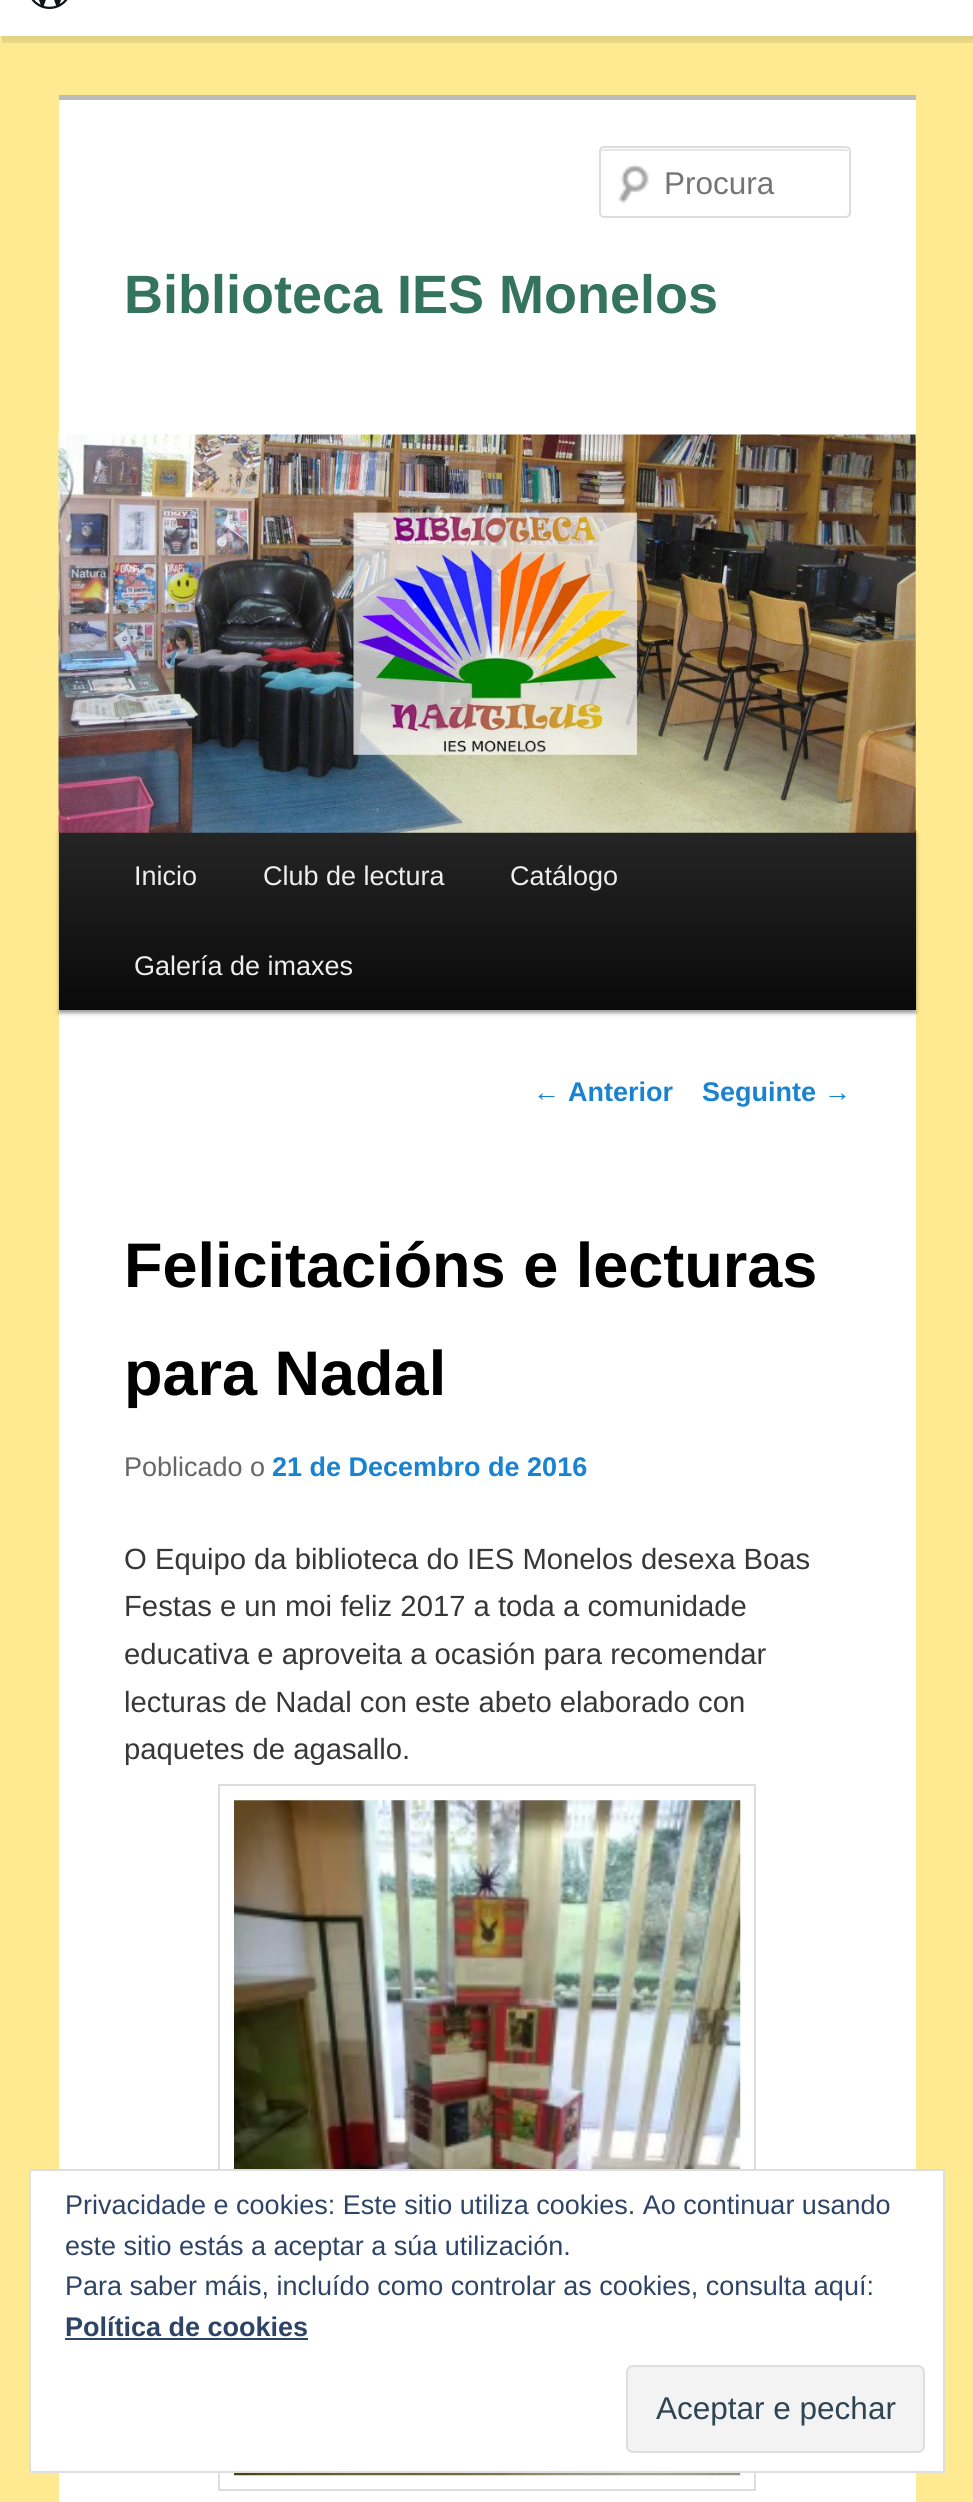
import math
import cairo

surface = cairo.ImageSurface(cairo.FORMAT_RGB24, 973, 2502)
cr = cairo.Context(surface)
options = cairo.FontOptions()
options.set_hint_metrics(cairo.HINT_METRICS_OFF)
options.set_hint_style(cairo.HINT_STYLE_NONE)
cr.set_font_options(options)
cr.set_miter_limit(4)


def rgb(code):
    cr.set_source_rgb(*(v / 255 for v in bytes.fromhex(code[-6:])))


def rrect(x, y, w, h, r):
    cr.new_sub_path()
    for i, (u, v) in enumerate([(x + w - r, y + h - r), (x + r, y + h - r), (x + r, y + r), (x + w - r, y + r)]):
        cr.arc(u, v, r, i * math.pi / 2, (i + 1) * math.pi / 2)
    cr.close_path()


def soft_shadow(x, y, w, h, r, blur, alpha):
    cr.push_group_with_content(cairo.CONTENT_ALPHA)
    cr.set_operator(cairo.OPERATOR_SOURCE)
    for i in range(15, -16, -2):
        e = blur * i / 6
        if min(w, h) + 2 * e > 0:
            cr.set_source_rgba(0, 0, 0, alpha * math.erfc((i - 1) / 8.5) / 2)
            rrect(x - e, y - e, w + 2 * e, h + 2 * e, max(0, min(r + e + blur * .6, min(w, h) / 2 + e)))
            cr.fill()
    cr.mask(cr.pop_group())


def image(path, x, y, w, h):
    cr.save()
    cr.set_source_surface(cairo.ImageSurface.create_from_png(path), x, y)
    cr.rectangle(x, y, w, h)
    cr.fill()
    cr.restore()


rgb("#ffea91")
cr.paint()
rgb("#000000")
soft_shadow(0, -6, 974, 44, 0, 2, 0.05)
cr.set_source_rgba(0, 0, 0, 0.08)
cr.new_path()
cr.move_to(2, 36)
cr.line_to(2, 43)
cr.line_to(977, 43)
cr.line_to(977, -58)
cr.line_to(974, -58)
cr.line_to(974, 36)
cr.close_path()
cr.fill()
rgb("#ffffff")
cr.rectangle(0, 0, 973, 36)
cr.fill()
image("img/1.png", 31, 0, 37, 9)
cr.rectangle(59, 100, 857, 2402)
cr.fill()
rgb("#bbbbbb")
cr.rectangle(59, 95, 857, 5)
cr.fill()
image("img/2.png", 618, 164, 31, 40)
rgb("#e6e6e6")
cr.new_path()
cr.move_to(603, 151)
cr.line_to(846, 151)
cr.curve_to(847, 151, 848, 152, 848, 153)
cr.curve_to(848, 151, 848, 149, 846, 149)
cr.line_to(603, 149)
cr.curve_to(601, 149, 601, 151, 601, 153)
cr.curve_to(601, 152, 602, 151, 603, 151)
cr.close_path()
cr.fill()
rrect(600, 147, 250, 70, 4)
rgb("#dddddd")
cr.stroke()
rgb("#000000")
soft_shadow(59, 833, 857, 180, 0, 2, 0.4)
gradient = cairo.LinearGradient(487, 830, 487, 1010)
gradient.add_color_stop_rgba(0, 0.145, 0.145, 0.145, 1)
gradient.add_color_stop_rgba(1, 0.039, 0.039, 0.039, 1)
cr.set_source(gradient)
cr.rectangle(59, 830, 857, 180)
cr.fill()
image("img/3.png", 58, 434, 858, 399)
cr.rectangle(219, 1785, 536, 705)
rgb("#dddddd")
cr.stroke()
image("img/4.png", 234, 1800, 507, 676)
rgb("#ffffff")
cr.rectangle(30, 2170, 914, 302)
cr.fill_preserve()
rgb("#dedede")
cr.stroke()
rgb("#2e4467")
cr.rectangle(65, 2338, 243, 2)
cr.fill()
rgb("#f3f3f3")
rrect(627, 2366, 297, 86, 6)
cr.fill_preserve()
rgb("#dedede")
cr.stroke()
cr.select_font_face("Liberation Sans")
cr.set_font_size(31.5)
rgb("#757575")
cr.move_to(664, 194)
cr.show_text("Procura")
cr.select_font_face("Liberation Sans", cairo.FONT_SLANT_NORMAL, cairo.FONT_WEIGHT_BOLD)
cr.set_font_size(54)
rgb("#34735d")
cr.move_to(124, 313)
cr.show_text("Biblioteca IES Monelos")
cr.select_font_face("Liberation Sans")
cr.set_font_size(27)
rgb("#eeeeee")
for x, y, s in [
    (134, 885, "Inicio"),
    (263, 885, "Club de lectura"),
    (510, 885, "Catálogo"),
    (134, 975, "Galería de imaxes"),
]:
    cr.move_to(x, y)
    cr.show_text(s)
rgb("#1982d1")
cr.move_to(533, 1101)
cr.show_text("←")
cr.select_font_face("Liberation Sans", cairo.FONT_SLANT_NORMAL, cairo.FONT_WEIGHT_BOLD)
cr.move_to(568, 1101)
cr.show_text("Anterior")
cr.move_to(702, 1101)
cr.show_text("Seguinte")
cr.select_font_face("Liberation Sans")
cr.move_to(824, 1101)
cr.show_text("→")
cr.select_font_face("Liberation Sans", cairo.FONT_SLANT_NORMAL, cairo.FONT_WEIGHT_BOLD)
cr.set_font_size(63)
rgb("#000000")
cr.move_to(124, 1287)
cr.show_text("Felicitacións e lecturas")
cr.move_to(124, 1395)
cr.show_text("para Nadal")
cr.select_font_face("Liberation Sans")
cr.set_font_size(27)
rgb("#666666")
cr.move_to(124, 1476)
cr.show_text("Poblicado o")
cr.select_font_face("Liberation Sans", cairo.FONT_SLANT_NORMAL, cairo.FONT_WEIGHT_BOLD)
rgb("#1982d1")
cr.move_to(272, 1476)
cr.show_text("21 de Decembro de 2016")
cr.select_font_face("Liberation Sans")
cr.set_font_size(29.25)
rgb("#373737")
for x, y, s in [
    (124, 1569, "O Equipo da biblioteca do IES Monelos desexa Boas"),
    (124, 1616, "Festas e un moi feliz 2017 a toda a comunidade"),
    (124, 1664, "educativa e aproveita a ocasión para recomendar"),
    (124, 1712, "lecturas de Nadal con este abeto elaborado con"),
    (124, 1759, "paquetes de agasallo."),
]:
    cr.move_to(x, y)
    cr.show_text(s)
cr.set_font_size(27)
rgb("#2e4467")
for x, y, s in [
    (65, 2214, "Privacidade e cookies: Este sitio utiliza cookies. Ao continuar usando"),
    (65, 2255, "este sitio estás a aceptar a súa utilización."),
    (65, 2295, "Para saber máis, incluído como controlar as cookies, consulta aquí:"),
]:
    cr.move_to(x, y)
    cr.show_text(s)
cr.select_font_face("Liberation Sans", cairo.FONT_SLANT_NORMAL, cairo.FONT_WEIGHT_BOLD)
cr.move_to(65, 2336)
cr.show_text("Política de cookies")
cr.select_font_face("Liberation Sans")
cr.set_font_size(31.5)
rgb("#2e4453")
cr.move_to(656, 2419)
cr.show_text("Aceptar e pechar")
surface.write_to_png("page.png")
